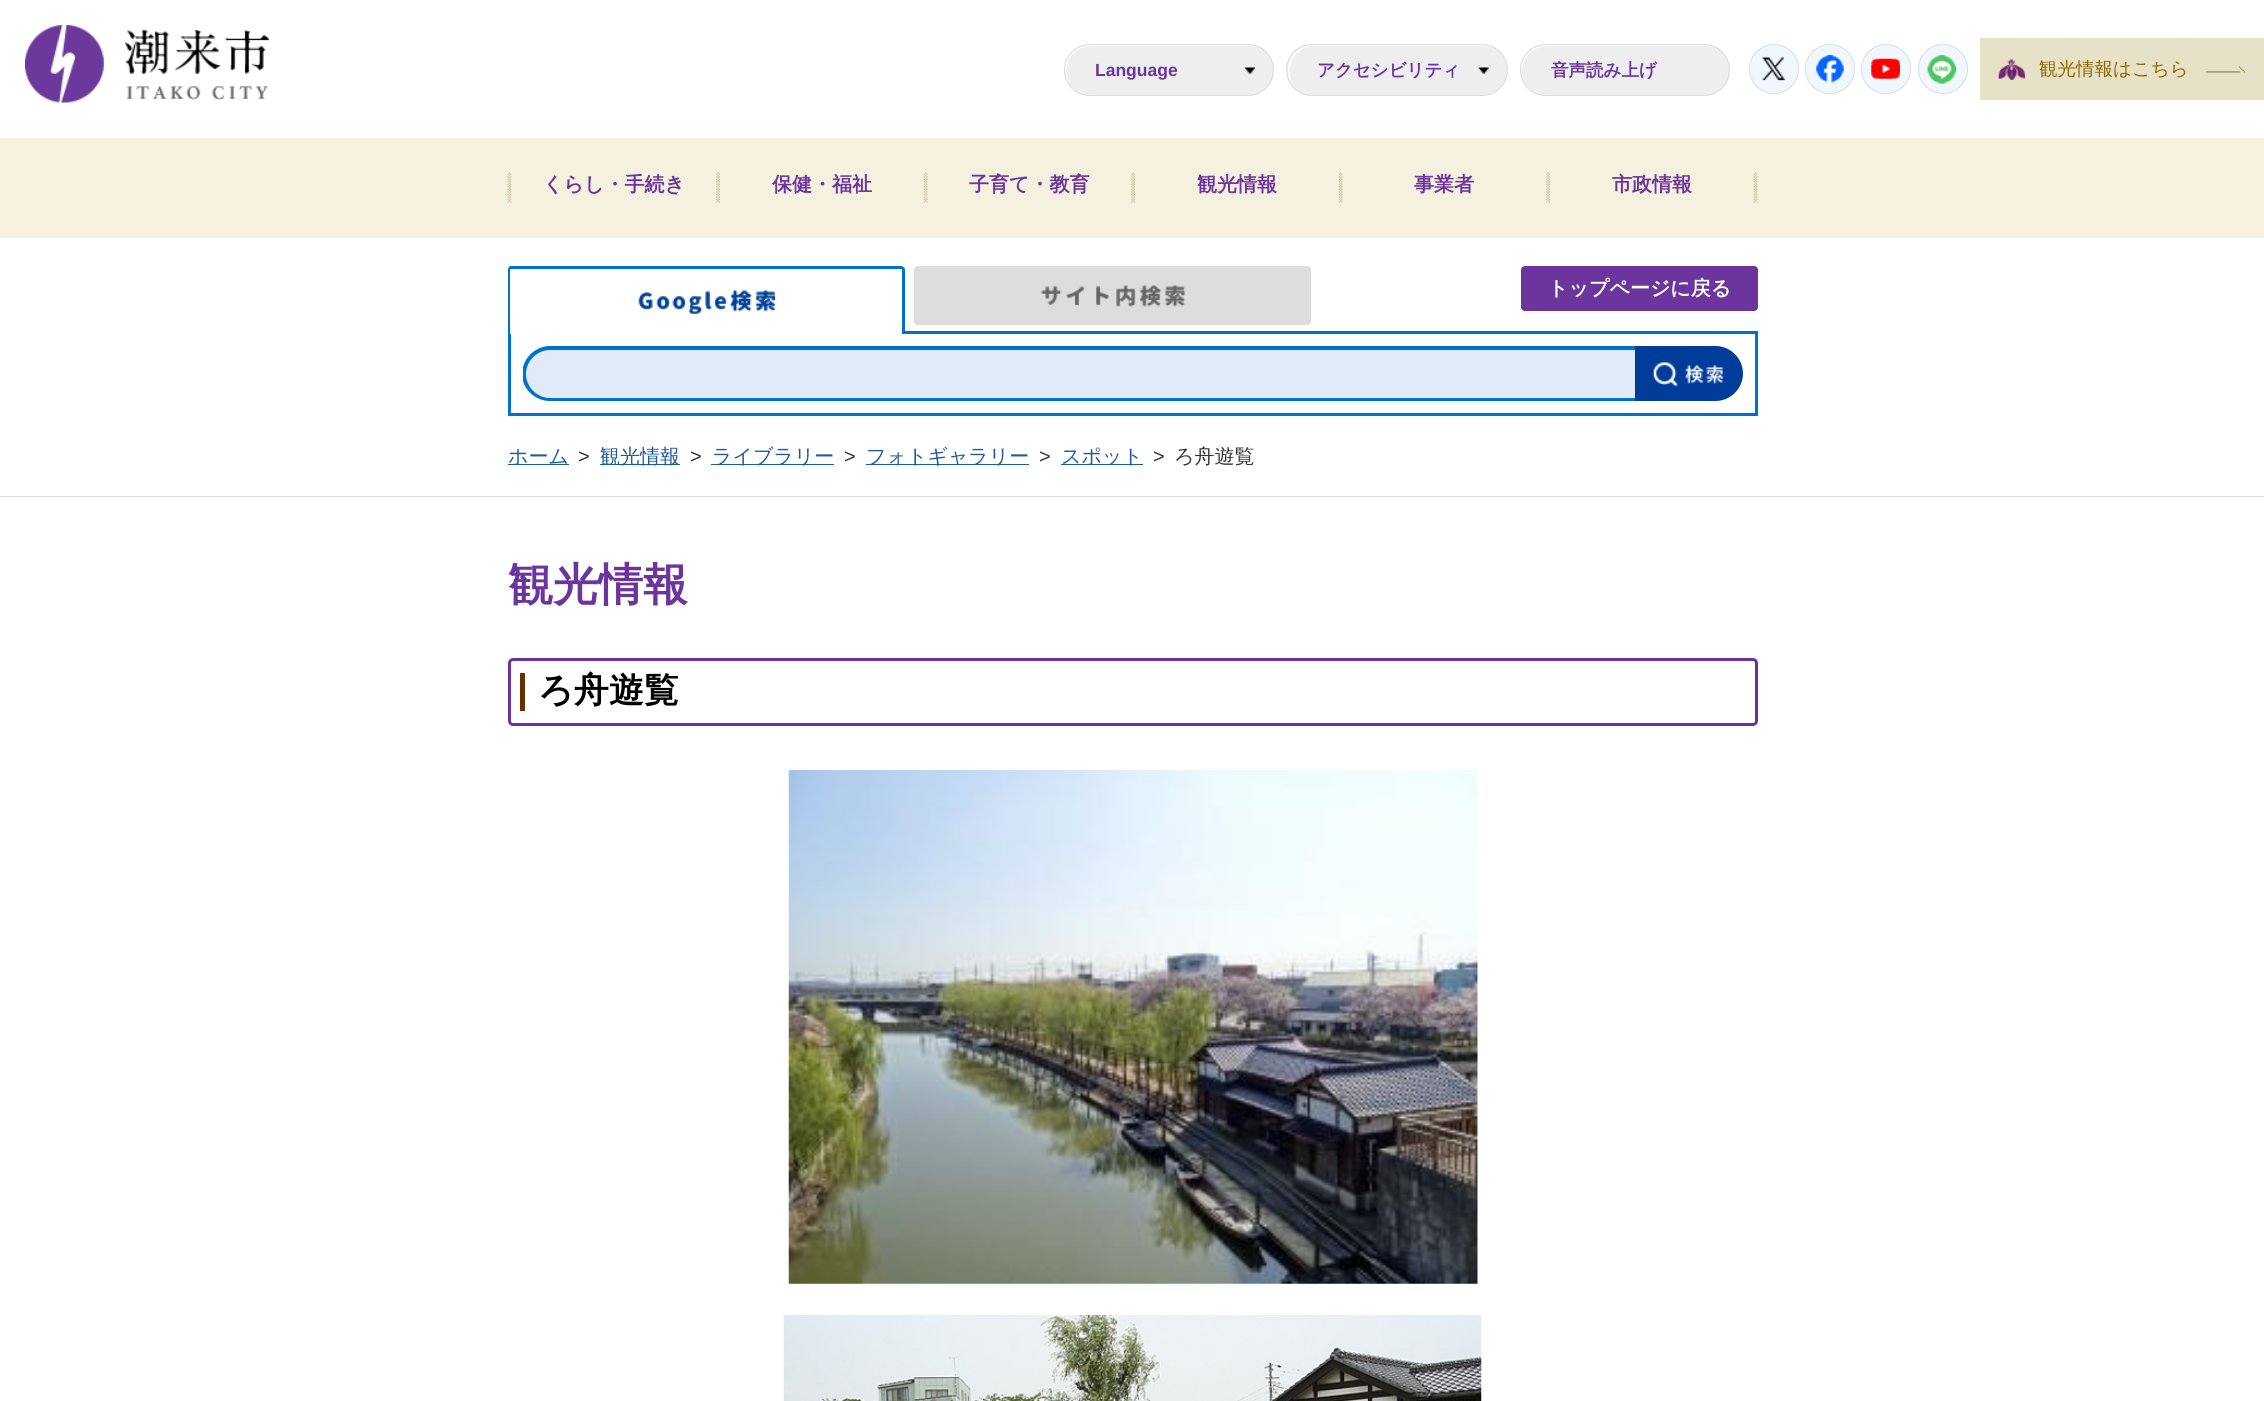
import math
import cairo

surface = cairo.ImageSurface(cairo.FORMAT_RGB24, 2264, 1401)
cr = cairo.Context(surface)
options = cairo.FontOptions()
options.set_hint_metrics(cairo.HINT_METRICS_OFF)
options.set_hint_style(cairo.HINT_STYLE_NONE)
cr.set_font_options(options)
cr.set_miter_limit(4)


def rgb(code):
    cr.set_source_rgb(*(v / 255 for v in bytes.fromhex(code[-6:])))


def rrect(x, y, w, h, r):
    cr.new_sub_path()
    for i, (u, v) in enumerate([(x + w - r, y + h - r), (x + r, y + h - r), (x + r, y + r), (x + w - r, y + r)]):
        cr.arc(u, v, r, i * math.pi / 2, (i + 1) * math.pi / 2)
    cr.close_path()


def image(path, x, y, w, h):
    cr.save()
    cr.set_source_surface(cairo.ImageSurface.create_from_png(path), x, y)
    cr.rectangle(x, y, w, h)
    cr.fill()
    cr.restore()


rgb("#ffffff")
cr.paint()
image("img/1.png", 25, 25, 245, 78)
rgb("#eeeeee")
rrect(1064, 44, 210, 52, 26)
cr.fill()
image("img/2.png", 1245, 67, 10, 7)
rgb("#ffffff")
cr.new_path()
cr.move_to(1091, 46)
cr.line_to(1249, 46)
cr.curve_to(1255, 46, 1261, 48, 1265, 52)
cr.curve_to(1260, 47, 1255, 45, 1248, 45)
cr.line_to(1090, 45)
cr.curve_to(1076, 45, 1065, 56, 1065, 70)
cr.curve_to(1065, 77, 1067, 82, 1072, 87)
cr.curve_to(1059, 71, 1070, 46, 1091, 46)
cr.close_path()
cr.fill()
rrect(1064.5, 44.5, 209, 51, 25.5)
rgb("#dddddd")
cr.set_line_width(1)
cr.stroke()
rgb("#eeeeee")
rrect(1286, 44, 222, 52, 26)
cr.fill()
image("img/3.png", 1478, 67, 11, 7)
rgb("#ffffff")
cr.new_path()
cr.move_to(1314, 46)
cr.line_to(1482, 46)
cr.curve_to(1487, 46, 1492, 47, 1496, 50)
cr.curve_to(1492, 47, 1487, 45, 1481, 45)
cr.line_to(1313, 45)
cr.curve_to(1299, 45, 1288, 56, 1288, 70)
cr.curve_to(1288, 77, 1290, 82, 1295, 87)
cr.curve_to(1282, 71, 1293, 46, 1314, 46)
cr.close_path()
cr.fill()
rrect(1286.5, 44.5, 221, 51, 25.5)
rgb("#dddddd")
cr.stroke()
rgb("#eeeeee")
rrect(1520, 44, 210, 52, 26)
cr.fill()
rgb("#ffffff")
cr.new_path()
cr.move_to(1548, 46)
cr.line_to(1705, 46)
cr.curve_to(1711, 46, 1717, 48, 1721, 52)
cr.curve_to(1716, 47, 1711, 45, 1704, 45)
cr.line_to(1546, 45)
cr.curve_to(1532, 45, 1521, 56, 1521, 70)
cr.curve_to(1521, 79, 1526, 87, 1533, 91)
cr.curve_to(1512, 77, 1523, 46, 1548, 46)
cr.close_path()
cr.fill()
rrect(1520.5, 44.5, 209, 51, 25.5)
rgb("#dddddd")
cr.stroke()
rgb("#f0f7fe")
cr.arc(1774, 69, 25, 0, 2 * math.pi)
cr.fill()
image("img/4.png", 1762, 57, 24, 24)
cr.arc(1774, 69, 24.5, 0, 2 * math.pi)
rgb("#dddddd")
cr.stroke()
rgb("#f0f7fe")
cr.arc(1830, 69, 25, 0, 2 * math.pi)
cr.fill()
image("img/5.png", 1816, 55, 28, 28)
cr.arc(1830, 69, 24.5, 0, 2 * math.pi)
rgb("#dddddd")
cr.stroke()
rgb("#f0f7fe")
cr.arc(1886, 69, 25, 0, 2 * math.pi)
cr.fill()
image("img/6.png", 1871, 58, 29, 21)
cr.arc(1886, 69, 24.5, 0, 2 * math.pi)
rgb("#dddddd")
cr.stroke()
rgb("#f0f7fe")
cr.arc(1943, 69, 25, 0, 2 * math.pi)
cr.fill()
image("img/7.png", 1927, 55, 30, 29)
cr.arc(1943, 69, 24.5, 0, 2 * math.pi)
rgb("#dddddd")
cr.stroke()
rgb("#e7e1c7")
cr.rectangle(1980, 38, 284, 62)
cr.fill()
image("img/8.png", 1998, 58, 247, 22)
rgb("#f6f1de")
cr.rectangle(0, 138, 2264, 100)
cr.fill()
image("img/9.png", 507, 172, 5, 31)
image("img/10.png", 716, 172, 4, 31)
image("img/11.png", 923, 172, 5, 31)
image("img/10.png", 1131, 172, 4, 31)
image("img/11.png", 1338, 172, 5, 31)
image("img/10.png", 1546, 172, 4, 31)
image("img/11.png", 1753, 172, 5, 31)
cr.rectangle(509.5, 332.5, 1247, 82)
rgb("#0071d0")
cr.set_line_width(3)
cr.stroke()
rgb("#ffffff")
cr.new_path()
cr.move_to(512, 266)
cr.line_to(901, 266)
cr.curve_to(903, 266, 905, 268, 905, 270)
cr.line_to(905, 334)
cr.line_to(508, 334)
cr.line_to(508, 270)
cr.curve_to(508, 268, 510, 266, 512, 266)
cr.close_path()
cr.fill()
image("img/12.png", 638, 289, 138, 25)
rgb("#0071d0")
cr.set_fill_rule(cairo.FILL_RULE_EVEN_ODD)
cr.new_path()
cr.move_to(511, 266)
cr.line_to(901, 266)
cr.curve_to(903, 266, 905, 268, 905, 270)
cr.line_to(905, 334)
cr.line_to(508, 334)
cr.line_to(508, 270)
cr.curve_to(508, 268, 509, 266, 511, 266)
cr.close_path()
cr.move_to(511, 269)
cr.line_to(901, 269)
cr.curve_to(902, 269, 902, 269, 902, 270)
cr.line_to(902, 334)
cr.line_to(510, 334)
cr.line_to(510, 270)
cr.curve_to(510, 269, 511, 269, 511, 269)
cr.close_path()
cr.fill()
rgb("#dddddd")
rrect(914, 266, 397, 59, 4)
cr.fill()
image("img/13.png", 1041, 285, 145, 22)
rrect(915.5, 267.5, 394, 56, 2.5)
cr.stroke()
rgb("#6b359d")
rrect(1521, 266, 237, 45, 4)
cr.fill()
rgb("#e1ebf8")
cr.new_path()
cr.move_to(550.5, 346)
cr.line_to(1638, 346)
cr.line_to(1638, 401)
cr.line_to(550.5, 401)
cr.curve_to(535.5, 401, 523, 388.5, 523, 373.5)
cr.curve_to(523, 358.5, 535.5, 346, 550.5, 346)
cr.close_path()
cr.fill()
cr.save()
cr.set_fill_rule(cairo.FILL_RULE_WINDING)
cr.rectangle(523, 346, 1220, 55)
cr.clip()
rgb("#0071d0")
cr.set_fill_rule(cairo.FILL_RULE_EVEN_ODD)
cr.new_path()
cr.move_to(550, 346)
cr.line_to(1638, 346)
cr.line_to(1638, 401)
cr.line_to(550, 401)
cr.curve_to(535, 401, 522, 389, 522, 374)
cr.curve_to(522, 359, 535, 346, 550, 346)
cr.close_path()
cr.move_to(550, 350)
cr.line_to(1638, 350)
cr.line_to(1638, 398)
cr.line_to(550, 398)
cr.curve_to(537, 398, 526, 387, 526, 374)
cr.curve_to(526, 361, 537, 350, 550, 350)
cr.close_path()
cr.fill()
cr.restore()
rgb("#003d9a")
cr.new_path()
cr.move_to(1635, 346)
cr.line_to(1715.5, 346)
cr.curve_to(1730.5, 346, 1743, 358.5, 1743, 373.5)
cr.curve_to(1743, 388.5, 1730.5, 401, 1715.5, 401)
cr.line_to(1635, 401)
cr.close_path()
cr.fill()
image("img/14.png", 1653, 362, 71, 25)
for x, y, w, h, color in [
    (0, 496, 2264, 1, "#dddddd"),
    (508, 464, 61, 1, "#1e599c"),
    (600, 464, 80, 1, "#1e599c"),
    (711, 464, 123, 1, "#1e599c"),
    (866, 464, 163, 1, "#1e599c"),
    (1061, 464, 82, 1, "#1e599c"),
]:
    rgb(color)
    cr.rectangle(x, y, w, h)
    cr.fill()
rrect(509.5, 659.5, 1247, 65, 3.5)
rgb("#6c309f")
cr.stroke()
rgb("#672e00")
cr.rectangle(520, 673, 5, 38)
cr.fill()
image("img/15.png", 788, 770, 690, 514)
image("img/16.png", 783, 1315, 699, 86)
cr.select_font_face("Liberation Sans", cairo.FONT_SLANT_NORMAL, cairo.FONT_WEIGHT_BOLD)
cr.set_font_size(17.5)
rgb("#6b359d")
cr.move_to(1095, 76)
cr.show_text("Language")
cr.select_font_face("WenQuanYi Zen Hei", cairo.FONT_SLANT_NORMAL, cairo.FONT_WEIGHT_BOLD)
cr.move_to(1317, 76)
cr.show_text("アクセシビリティ")
cr.move_to(1551, 76)
cr.show_text("音声読み上げ")
cr.select_font_face("WenQuanYi Zen Hei Medium")
cr.set_font_size(18.5)
rgb("#8c6900")
cr.move_to(2039, 75)
cr.show_text("観光情報はこちら")
cr.select_font_face("WenQuanYi Zen Hei", cairo.FONT_SLANT_NORMAL, cairo.FONT_WEIGHT_BOLD)
cr.set_font_size(20)
rgb("#6b359d")
for x, y, s in [
    (543, 191, "くらし・手続き"),
    (772, 191, "保健・福祉"),
    (969, 191, "子育て・教育"),
    (1197, 191, "観光情報"),
    (1414, 191, "事業者"),
    (1612, 191, "市政情報"),
]:
    cr.move_to(x, y)
    cr.show_text(s)
rgb("#ffffff")
cr.move_to(1548, 295)
cr.show_text("トップページに戻る")
cr.select_font_face("WenQuanYi Zen Hei Medium")
rgb("#1e599c")
cr.move_to(508, 463)
cr.show_text("ホーム")
cr.select_font_face("Liberation Sans")
rgb("#333333")
cr.move_to(578, 463)
cr.show_text(">")
cr.select_font_face("WenQuanYi Zen Hei Medium")
rgb("#1e599c")
cr.move_to(600, 463)
cr.show_text("観光情報")
cr.select_font_face("Liberation Sans")
rgb("#333333")
cr.move_to(690, 463)
cr.show_text(">")
cr.select_font_face("WenQuanYi Zen Hei Medium")
rgb("#1e599c")
cr.move_to(712, 463)
cr.show_text("ライブラリー")
cr.select_font_face("Liberation Sans")
rgb("#333333")
cr.move_to(844, 463)
cr.show_text(">")
cr.select_font_face("WenQuanYi Zen Hei Medium")
rgb("#1e599c")
cr.move_to(866, 463)
cr.show_text("フォトギャラリー")
cr.select_font_face("Liberation Sans")
rgb("#333333")
cr.move_to(1039, 463)
cr.show_text(">")
cr.select_font_face("WenQuanYi Zen Hei Medium")
rgb("#1e599c")
cr.move_to(1061, 463)
cr.show_text("スポット")
cr.select_font_face("Liberation Sans")
rgb("#333333")
cr.move_to(1153, 463)
cr.show_text(">")
cr.select_font_face("WenQuanYi Zen Hei Medium")
cr.move_to(1174, 463)
cr.show_text("ろ舟遊覧")
cr.select_font_face("WenQuanYi Zen Hei", cairo.FONT_SLANT_NORMAL, cairo.FONT_WEIGHT_BOLD)
cr.set_font_size(45)
rgb("#6b359d")
cr.move_to(508, 600)
cr.show_text("観光情報")
cr.set_font_size(35)
rgb("#000000")
cr.move_to(538, 702)
cr.show_text("ろ舟遊覧")
surface.write_to_png("page.png")
